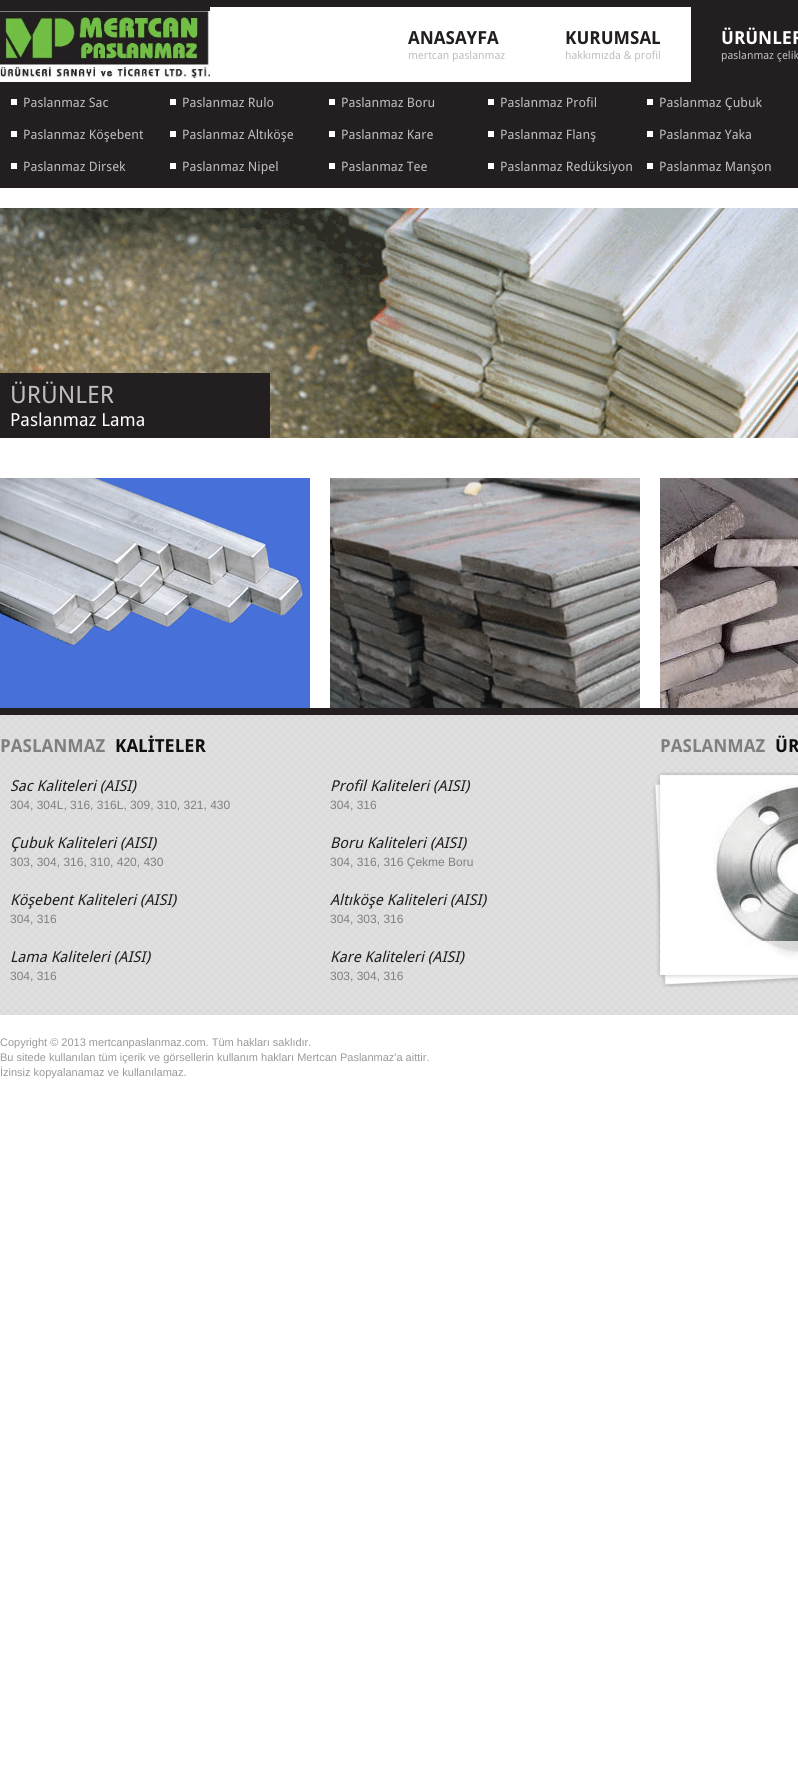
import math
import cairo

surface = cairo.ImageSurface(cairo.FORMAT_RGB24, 798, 1775)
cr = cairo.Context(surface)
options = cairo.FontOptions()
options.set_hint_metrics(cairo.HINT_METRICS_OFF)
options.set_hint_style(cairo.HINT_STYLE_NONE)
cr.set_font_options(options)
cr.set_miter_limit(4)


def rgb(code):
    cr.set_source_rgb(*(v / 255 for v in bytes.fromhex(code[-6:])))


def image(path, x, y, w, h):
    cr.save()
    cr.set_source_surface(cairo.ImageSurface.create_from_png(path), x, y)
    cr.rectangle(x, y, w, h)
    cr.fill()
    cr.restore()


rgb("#ffffff")
cr.paint()
rgb("#231f20")
cr.rectangle(0, 0, 798, 7)
cr.fill()
cr.rectangle(0, 7, 210, 4)
cr.fill()
image("img/1.png", 0, 11, 210, 67)
for x, y, w, h, color in [
    (691, 7, 107, 75, "#231f21"),
    (0, 82, 798, 106, "#231f21"),
    (11, 99, 6, 6, "#ffffff"),
    (170, 99, 6, 6, "#ffffff"),
    (329, 99, 6, 6, "#ffffff"),
    (488, 99, 6, 6, "#ffffff"),
    (647, 99, 6, 6, "#ffffff"),
    (11, 131, 6, 6, "#ffffff"),
    (170, 131, 6, 6, "#ffffff"),
    (329, 131, 6, 6, "#ffffff"),
    (488, 131, 6, 6, "#ffffff"),
    (647, 131, 6, 6, "#ffffff"),
    (11, 163, 6, 6, "#ffffff"),
    (170, 163, 6, 6, "#ffffff"),
    (329, 163, 6, 6, "#ffffff"),
    (488, 163, 6, 6, "#ffffff"),
    (647, 163, 6, 6, "#ffffff"),
]:
    rgb(color)
    cr.rectangle(x, y, w, h)
    cr.fill()
image("img/2.png", 0, 208, 798, 230)
rgb("#231f21")
cr.rectangle(0, 373, 270, 65)
cr.fill()
image("img/3.png", 0, 478, 310, 230)
image("img/4.png", 330, 478, 310, 230)
image("img/5.png", 660, 478, 138, 230)
rgb("#231f20")
cr.rectangle(0, 708, 798, 7)
cr.fill()
image("img/6.png", 0, 715, 798, 300)
image("img/7.png", 652, 772, 146, 215)
image("img/8.png", 713, 785, 85, 175)
cr.set_source_rgba(1, 1, 1, 0.75)
cr.rectangle(752, 941, 46, 19)
cr.fill()
cr.select_font_face("Droid Sans", cairo.FONT_SLANT_NORMAL, cairo.FONT_WEIGHT_BOLD)
cr.set_font_size(18)
rgb("#221e1f")
cr.move_to(408, 44)
cr.show_text("ANASAYFA")
cr.select_font_face("Droid Sans")
cr.set_font_size(11)
rgb("#bdbec0")
cr.move_to(408, 59)
cr.show_text("mertcan paslanmaz")
cr.select_font_face("Droid Sans", cairo.FONT_SLANT_NORMAL, cairo.FONT_WEIGHT_BOLD)
cr.set_font_size(18)
rgb("#221e1f")
cr.move_to(565, 44)
cr.show_text("KURUMSAL")
cr.select_font_face("Droid Sans")
cr.set_font_size(11)
rgb("#bdbec0")
cr.move_to(565, 59)
cr.show_text("hakkımızda & profil")
cr.select_font_face("Droid Sans", cairo.FONT_SLANT_NORMAL, cairo.FONT_WEIGHT_BOLD)
cr.set_font_size(18)
rgb("#ffffff")
cr.move_to(721, 44)
cr.show_text("ÜRÜNLER")
cr.select_font_face("Droid Sans")
cr.set_font_size(11)
rgb("#bdbec0")
cr.move_to(721, 59)
cr.show_text("paslanmaz çelik")
cr.set_font_size(13)
for x, y, s in [
    (23, 107, "Paslanmaz Sac"),
    (182, 107, "Paslanmaz Rulo"),
    (341, 107, "Paslanmaz Boru"),
    (500, 107, "Paslanmaz Profil"),
    (659, 107, "Paslanmaz Çubuk"),
    (23, 139, "Paslanmaz Köşebent"),
    (182, 139, "Paslanmaz Altıköşe"),
    (341, 139, "Paslanmaz Kare"),
    (500, 139, "Paslanmaz Flanş"),
    (659, 139, "Paslanmaz Yaka"),
    (23, 171, "Paslanmaz Dirsek"),
    (182, 171, "Paslanmaz Nipel"),
    (341, 171, "Paslanmaz Tee"),
    (500, 171, "Paslanmaz Redüksiyon"),
    (659, 171, "Paslanmaz Manşon"),
]:
    cr.move_to(x, y)
    cr.show_text(s)
cr.set_font_size(24)
cr.move_to(10, 403)
cr.show_text("ÜRÜNLER")
cr.set_font_size(18)
rgb("#ffffff")
cr.move_to(10, 426)
cr.show_text("Paslanmaz Lama")
cr.select_font_face("Droid Sans", cairo.FONT_SLANT_NORMAL, cairo.FONT_WEIGHT_BOLD)
rgb("#7f7f7f")
cr.move_to(0, 752)
cr.show_text("PASLANMAZ")
rgb("#100e0f")
cr.move_to(115, 752)
cr.show_text("KALİTELER")
cr.select_font_face("Droid Sans", cairo.FONT_SLANT_ITALIC)
cr.set_font_size(15)
rgb("#221e1f")
cr.move_to(10, 791)
cr.show_text("Sac Kaliteleri (AISI)")
cr.select_font_face("Liberation Sans")
cr.set_font_size(12)
rgb("#7f7f7f")
cr.move_to(10, 809)
cr.show_text("304, 304L, 316, 316L, 309, 310, 321, 430")
cr.select_font_face("Droid Sans", cairo.FONT_SLANT_ITALIC)
cr.set_font_size(15)
rgb("#221e1f")
cr.move_to(330, 791)
cr.show_text("Profil Kaliteleri (AISI)")
cr.select_font_face("Liberation Sans")
cr.set_font_size(12)
rgb("#7f7f7f")
cr.move_to(330, 809)
cr.show_text("304, 316")
cr.select_font_face("Droid Sans", cairo.FONT_SLANT_ITALIC)
cr.set_font_size(15)
rgb("#221e1f")
cr.move_to(10, 848)
cr.show_text("Çubuk Kaliteleri (AISI)")
cr.select_font_face("Liberation Sans")
cr.set_font_size(12)
rgb("#7f7f7f")
cr.move_to(10, 866)
cr.show_text("303, 304, 316, 310, 420, 430")
cr.select_font_face("Droid Sans", cairo.FONT_SLANT_ITALIC)
cr.set_font_size(15)
rgb("#221e1f")
cr.move_to(330, 848)
cr.show_text("Boru Kaliteleri (AISI)")
cr.select_font_face("Liberation Sans")
cr.set_font_size(12)
rgb("#7f7f7f")
cr.move_to(330, 866)
cr.show_text("304, 316, 316 Çekme Boru")
cr.select_font_face("Droid Sans", cairo.FONT_SLANT_ITALIC)
cr.set_font_size(15)
rgb("#221e1f")
cr.move_to(10, 905)
cr.show_text("Köşebent Kaliteleri (AISI)")
cr.select_font_face("Liberation Sans")
cr.set_font_size(12)
rgb("#7f7f7f")
cr.move_to(10, 923)
cr.show_text("304, 316")
cr.select_font_face("Droid Sans", cairo.FONT_SLANT_ITALIC)
cr.set_font_size(15)
rgb("#221e1f")
cr.move_to(330, 905)
cr.show_text("Altıköşe Kaliteleri (AISI)")
cr.select_font_face("Liberation Sans")
cr.set_font_size(12)
rgb("#7f7f7f")
cr.move_to(330, 923)
cr.show_text("304, 303, 316")
cr.select_font_face("Droid Sans", cairo.FONT_SLANT_ITALIC)
cr.set_font_size(15)
rgb("#221e1f")
cr.move_to(10, 962)
cr.show_text("Lama Kaliteleri (AISI)")
cr.select_font_face("Liberation Sans")
cr.set_font_size(12)
rgb("#7f7f7f")
cr.move_to(10, 980)
cr.show_text("304, 316")
cr.select_font_face("Droid Sans", cairo.FONT_SLANT_ITALIC)
cr.set_font_size(15)
rgb("#221e1f")
cr.move_to(330, 962)
cr.show_text("Kare Kaliteleri (AISI)")
cr.select_font_face("Liberation Sans")
cr.set_font_size(12)
rgb("#7f7f7f")
cr.move_to(330, 980)
cr.show_text("303, 304, 316")
cr.select_font_face("Droid Sans", cairo.FONT_SLANT_NORMAL, cairo.FONT_WEIGHT_BOLD)
cr.set_font_size(18)
cr.move_to(660, 752)
cr.show_text("PASLANMAZ")
rgb("#100e0f")
cr.move_to(775, 752)
cr.show_text("ÜR")
cr.select_font_face("Liberation Sans")
cr.set_font_size(11)
rgb("#999999")
for x, y, s in [
    (0, 1046, "Copyright © 2013 mertcanpaslanmaz.com. Tüm hakları saklıdır."),
    (0, 1061, "Bu sitede kullanılan tüm içerik ve görsellerin kullanım hakları Mertcan Paslanmaz'a aittir."),
    (0, 1076, "İzinsiz kopyalanamaz ve kullanılamaz."),
]:
    cr.move_to(x, y)
    cr.show_text(s)
surface.write_to_png("page.png")
